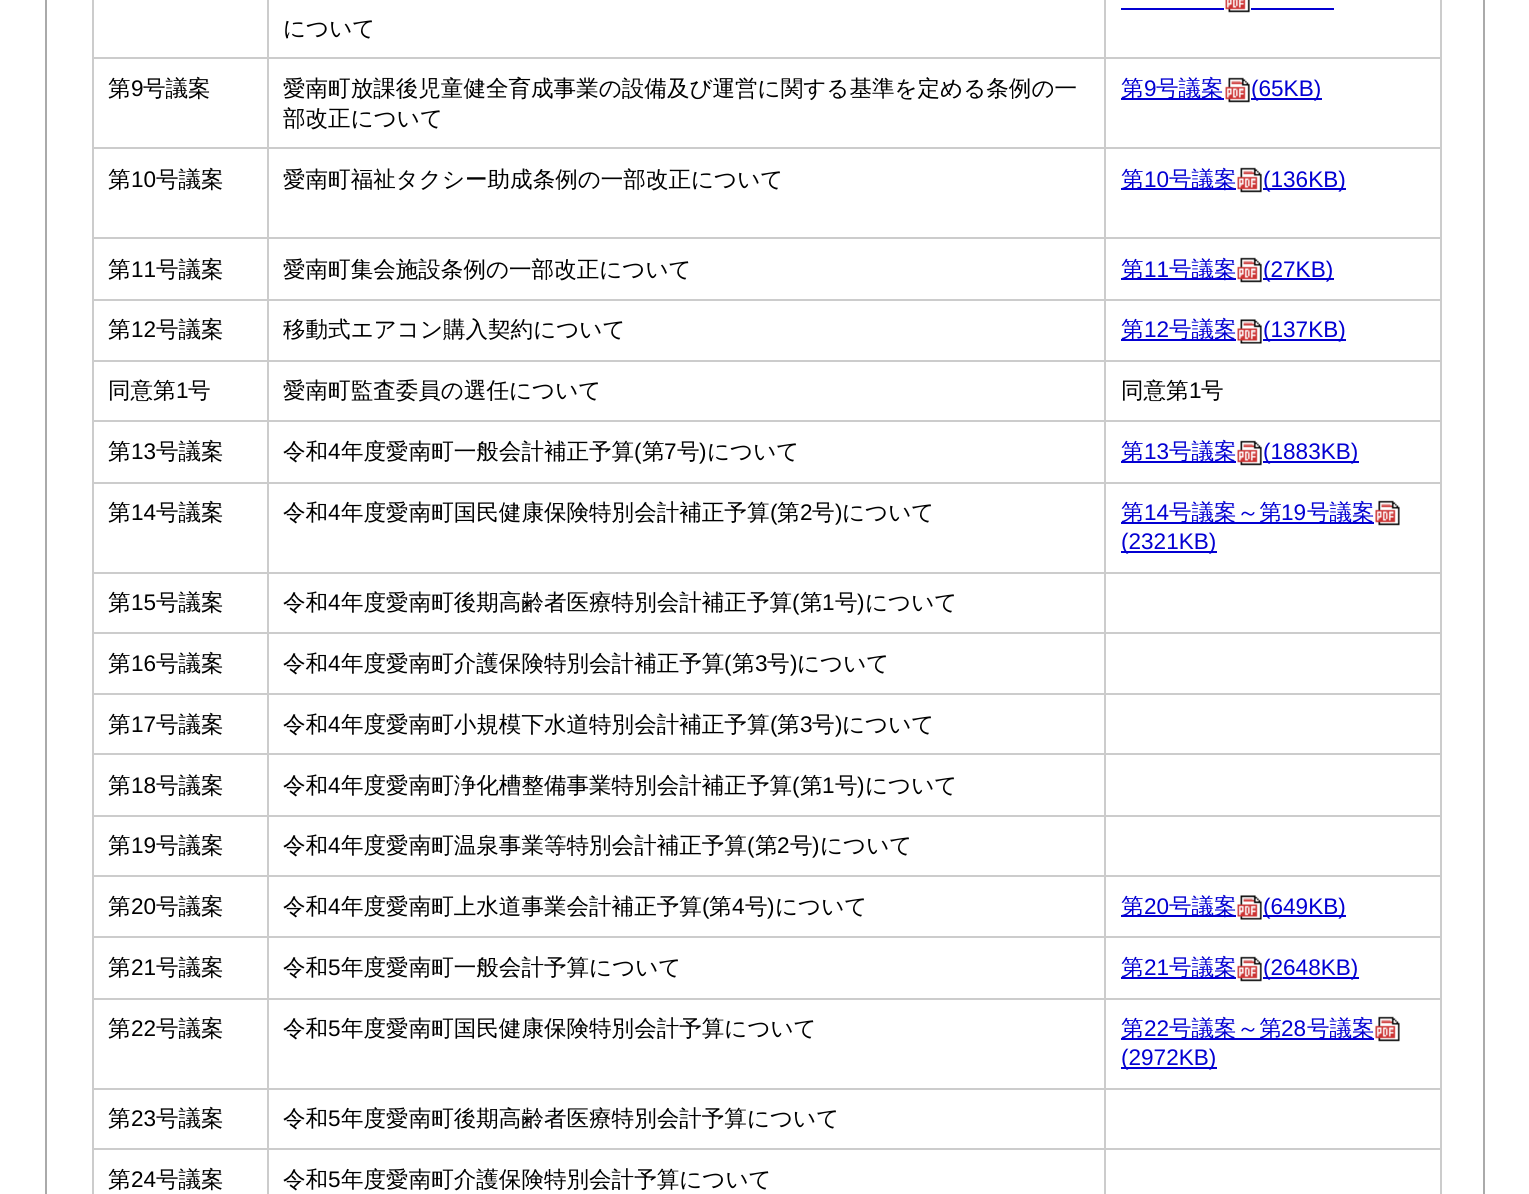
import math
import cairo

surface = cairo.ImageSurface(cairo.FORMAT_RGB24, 1529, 1194)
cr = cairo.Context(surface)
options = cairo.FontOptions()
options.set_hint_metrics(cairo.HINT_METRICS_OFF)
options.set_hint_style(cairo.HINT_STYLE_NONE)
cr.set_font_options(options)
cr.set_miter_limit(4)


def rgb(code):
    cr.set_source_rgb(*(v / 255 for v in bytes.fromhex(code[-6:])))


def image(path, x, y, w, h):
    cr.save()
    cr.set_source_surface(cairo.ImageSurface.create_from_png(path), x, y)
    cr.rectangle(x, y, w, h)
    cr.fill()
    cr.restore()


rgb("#ffffff")
cr.paint()
cr.rectangle(46, -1, 1438, 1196)
rgb("#aaaaaa")
cr.stroke()
for x, y, w, h, color in [
    (92, 0, 2, 1194, "#cccccc"),
    (1104, 1148, 2, 46, "#cccccc"),
    (1440, 0, 2, 1194, "#cccccc"),
    (1104, 1148, 338, 2, "#cccccc"),
    (1104, 1088, 2, 61, "#cccccc"),
    (1104, 1088, 338, 2, "#cccccc"),
    (1104, 998, 2, 91, "#cccccc"),
    (1104, 998, 338, 2, "#cccccc"),
    (1104, 936, 2, 63, "#cccccc"),
    (1104, 936, 338, 2, "#cccccc"),
    (1104, 875, 2, 63, "#cccccc"),
    (1104, 875, 338, 2, "#cccccc"),
    (1104, 815, 2, 61, "#cccccc"),
    (1104, 815, 338, 2, "#cccccc"),
    (1104, 753, 2, 63, "#cccccc"),
    (1104, 753, 338, 2, "#cccccc"),
    (1104, 693, 2, 62, "#cccccc"),
    (1104, 693, 338, 2, "#cccccc"),
    (1104, 632, 2, 63, "#cccccc"),
    (1104, 632, 338, 2, "#cccccc"),
    (1104, 572, 2, 61, "#cccccc"),
    (1104, 572, 338, 2, "#cccccc"),
    (1104, 482, 2, 91, "#cccccc"),
    (1104, 482, 338, 2, "#cccccc"),
    (1104, 420, 2, 63, "#cccccc"),
    (1104, 420, 338, 2, "#cccccc"),
    (1104, 360, 2, 62, "#cccccc"),
    (1104, 360, 338, 2, "#cccccc"),
    (1104, 299, 2, 63, "#cccccc"),
    (1104, 299, 338, 2, "#cccccc"),
    (1104, 237, 2, 63, "#cccccc"),
    (1104, 237, 338, 2, "#cccccc"),
    (1104, 147, 2, 92, "#cccccc"),
    (1104, 147, 338, 2, "#cccccc"),
    (1104, 57, 2, 92, "#cccccc"),
    (1104, 57, 338, 2, "#cccccc"),
    (1104, 0, 2, 59, "#cccccc"),
    (267, 1148, 2, 46, "#cccccc"),
    (267, 1148, 839, 2, "#cccccc"),
    (267, 1088, 2, 61, "#cccccc"),
    (267, 1088, 839, 2, "#cccccc"),
    (267, 998, 2, 91, "#cccccc"),
    (267, 998, 839, 2, "#cccccc"),
    (267, 936, 2, 63, "#cccccc"),
    (267, 936, 839, 2, "#cccccc"),
    (267, 875, 2, 63, "#cccccc"),
    (267, 875, 839, 2, "#cccccc"),
    (267, 815, 2, 61, "#cccccc"),
    (267, 815, 839, 2, "#cccccc"),
    (267, 753, 2, 63, "#cccccc"),
    (267, 753, 839, 2, "#cccccc"),
    (267, 693, 2, 62, "#cccccc"),
    (267, 693, 839, 2, "#cccccc"),
    (267, 632, 2, 63, "#cccccc"),
    (267, 632, 839, 2, "#cccccc"),
    (267, 572, 2, 61, "#cccccc"),
    (267, 572, 839, 2, "#cccccc"),
    (267, 482, 2, 91, "#cccccc"),
    (267, 482, 839, 2, "#cccccc"),
    (267, 420, 2, 63, "#cccccc"),
    (267, 420, 839, 2, "#cccccc"),
    (267, 360, 2, 62, "#cccccc"),
    (267, 360, 839, 2, "#cccccc"),
    (267, 299, 2, 63, "#cccccc"),
    (267, 299, 839, 2, "#cccccc"),
    (267, 237, 2, 63, "#cccccc"),
    (267, 237, 839, 2, "#cccccc"),
    (267, 147, 2, 92, "#cccccc"),
    (267, 147, 839, 2, "#cccccc"),
    (267, 57, 2, 92, "#cccccc"),
    (267, 57, 839, 2, "#cccccc"),
    (267, 0, 2, 59, "#cccccc"),
    (92, 57, 177, 2, "#cccccc"),
    (1121, 8, 103, 2, "#0300d2"),
]:
    rgb(color)
    cr.rectangle(x, y, w, h)
    cr.fill()
image("img/1.png", 1225, 0, 25, 13)
for x, y, w, h, color in [
    (1251, 8, 83, 2, "#0300d2"),
    (92, 147, 177, 2, "#cccccc"),
    (1121, 98, 103, 2, "#0300d2"),
]:
    rgb(color)
    cr.rectangle(x, y, w, h)
    cr.fill()
image("img/2.png", 1225, 77, 25, 26)
for x, y, w, h, color in [
    (1251, 98, 71, 2, "#0300d2"),
    (92, 237, 177, 2, "#cccccc"),
    (1121, 188, 115, 2, "#0300d2"),
]:
    rgb(color)
    cr.rectangle(x, y, w, h)
    cr.fill()
image("img/2.png", 1237, 167, 25, 26)
for x, y, w, h, color in [
    (1263, 188, 83, 2, "#0300d2"),
    (92, 299, 177, 2, "#cccccc"),
    (1121, 278, 115, 2, "#0300d2"),
]:
    rgb(color)
    cr.rectangle(x, y, w, h)
    cr.fill()
image("img/2.png", 1237, 257, 25, 26)
for x, y, w, h, color in [
    (1263, 278, 71, 2, "#0300d2"),
    (92, 360, 177, 2, "#cccccc"),
    (1121, 339, 115, 2, "#0300d2"),
]:
    rgb(color)
    cr.rectangle(x, y, w, h)
    cr.fill()
image("img/3.png", 1237, 319, 25, 25)
for x, y, w, h, color in [
    (1263, 339, 83, 2, "#0300d2"),
    (92, 420, 177, 2, "#cccccc"),
    (92, 482, 177, 2, "#cccccc"),
    (1121, 461, 115, 2, "#0300d2"),
]:
    rgb(color)
    cr.rectangle(x, y, w, h)
    cr.fill()
image("img/2.png", 1237, 440, 25, 26)
for x, y, w, h, color in [
    (1263, 461, 96, 2, "#0300d2"),
    (92, 572, 177, 2, "#cccccc"),
    (1121, 522, 253, 2, "#0300d2"),
]:
    rgb(color)
    cr.rectangle(x, y, w, h)
    cr.fill()
image("img/4.png", 1375, 500, 25, 26)
for x, y, w, h, color in [
    (1121, 551, 96, 2, "#0300d2"),
    (92, 632, 177, 2, "#cccccc"),
    (92, 693, 177, 2, "#cccccc"),
    (92, 753, 177, 2, "#cccccc"),
    (92, 815, 177, 2, "#cccccc"),
    (92, 875, 177, 2, "#cccccc"),
    (92, 936, 177, 2, "#cccccc"),
    (1121, 915, 115, 2, "#0300d2"),
]:
    rgb(color)
    cr.rectangle(x, y, w, h)
    cr.fill()
image("img/3.png", 1237, 895, 25, 25)
for x, y, w, h, color in [
    (1263, 915, 83, 2, "#0300d2"),
    (92, 998, 177, 2, "#cccccc"),
    (1121, 977, 115, 2, "#0300d2"),
]:
    rgb(color)
    cr.rectangle(x, y, w, h)
    cr.fill()
image("img/2.png", 1237, 956, 25, 26)
for x, y, w, h, color in [
    (1263, 977, 96, 2, "#0300d2"),
    (92, 1088, 177, 2, "#cccccc"),
    (1121, 1038, 253, 2, "#0300d2"),
]:
    rgb(color)
    cr.rectangle(x, y, w, h)
    cr.fill()
image("img/4.png", 1375, 1016, 25, 26)
cr.rectangle(1121, 1067, 96, 2)
cr.fill()
rgb("#cccccc")
cr.rectangle(92, 1148, 177, 2)
cr.fill()
cr.select_font_face("WenQuanYi Zen Hei Medium")
cr.set_font_size(22.55)
rgb("#000000")
cr.move_to(283, 36)
cr.show_text("について")
cr.move_to(108, 96)
cr.show_text("第")
cr.select_font_face("Liberation Sans")
cr.move_to(131, 96)
cr.show_text("9")
cr.select_font_face("WenQuanYi Zen Hei Medium")
for x, y, s in [
    (143, 96, "号議案"),
    (283, 96, "愛南町放課後児童健全育成事業の設備及び運営に関する基準を定める条例の一"),
    (283, 126, "部改正について"),
]:
    cr.move_to(x, y)
    cr.show_text(s)
rgb("#0300d2")
cr.move_to(1121, 96)
cr.show_text("第")
cr.select_font_face("Liberation Sans")
cr.move_to(1144, 96)
cr.show_text("9")
cr.select_font_face("WenQuanYi Zen Hei Medium")
cr.move_to(1156, 96)
cr.show_text("号議案")
cr.select_font_face("Liberation Sans")
cr.move_to(1251, 96)
cr.show_text("(65KB)")
cr.select_font_face("WenQuanYi Zen Hei Medium")
rgb("#000000")
cr.move_to(108, 187)
cr.show_text("第")
cr.select_font_face("Liberation Sans")
cr.move_to(131, 187)
cr.show_text("10")
cr.select_font_face("WenQuanYi Zen Hei Medium")
cr.move_to(156, 187)
cr.show_text("号議案")
cr.move_to(283, 187)
cr.show_text("愛南町福祉タクシー助成条例の一部改正について")
rgb("#0300d2")
cr.move_to(1121, 187)
cr.show_text("第")
cr.select_font_face("Liberation Sans")
cr.move_to(1144, 187)
cr.show_text("10")
cr.select_font_face("WenQuanYi Zen Hei Medium")
cr.move_to(1169, 187)
cr.show_text("号議案")
cr.select_font_face("Liberation Sans")
cr.move_to(1263, 187)
cr.show_text("(136KB)")
cr.select_font_face("WenQuanYi Zen Hei Medium")
rgb("#000000")
cr.move_to(108, 277)
cr.show_text("第")
cr.select_font_face("Liberation Sans")
cr.move_to(131, 277)
cr.show_text("11")
cr.select_font_face("WenQuanYi Zen Hei Medium")
cr.move_to(156, 277)
cr.show_text("号議案")
cr.move_to(283, 277)
cr.show_text("愛南町集会施設条例の一部改正について")
rgb("#0300d2")
cr.move_to(1121, 277)
cr.show_text("第")
cr.select_font_face("Liberation Sans")
cr.move_to(1144, 277)
cr.show_text("11")
cr.select_font_face("WenQuanYi Zen Hei Medium")
cr.move_to(1169, 277)
cr.show_text("号議案")
cr.select_font_face("Liberation Sans")
cr.move_to(1263, 277)
cr.show_text("(27KB)")
cr.select_font_face("WenQuanYi Zen Hei Medium")
rgb("#000000")
cr.move_to(108, 337)
cr.show_text("第")
cr.select_font_face("Liberation Sans")
cr.move_to(131, 337)
cr.show_text("12")
cr.select_font_face("WenQuanYi Zen Hei Medium")
cr.move_to(156, 337)
cr.show_text("号議案")
cr.move_to(283, 337)
cr.show_text("移動式エアコン購入契約について")
rgb("#0300d2")
cr.move_to(1121, 337)
cr.show_text("第")
cr.select_font_face("Liberation Sans")
cr.move_to(1144, 337)
cr.show_text("12")
cr.select_font_face("WenQuanYi Zen Hei Medium")
cr.move_to(1169, 337)
cr.show_text("号議案")
cr.select_font_face("Liberation Sans")
cr.move_to(1263, 337)
cr.show_text("(137KB)")
cr.select_font_face("WenQuanYi Zen Hei Medium")
rgb("#000000")
cr.move_to(108, 398)
cr.show_text("同意第")
cr.select_font_face("Liberation Sans")
cr.move_to(176, 398)
cr.show_text("1")
cr.select_font_face("WenQuanYi Zen Hei Medium")
for x, y, s in [
    (188, 398, "号"),
    (283, 398, "愛南町監査委員の選任について"),
    (1121, 398, "同意第"),
]:
    cr.move_to(x, y)
    cr.show_text(s)
cr.select_font_face("Liberation Sans")
cr.move_to(1189, 398)
cr.show_text("1")
cr.select_font_face("WenQuanYi Zen Hei Medium")
cr.move_to(1201, 398)
cr.show_text("号")
cr.move_to(108, 459)
cr.show_text("第")
cr.select_font_face("Liberation Sans")
cr.move_to(131, 459)
cr.show_text("13")
cr.select_font_face("WenQuanYi Zen Hei Medium")
cr.move_to(156, 459)
cr.show_text("号議案")
cr.move_to(283, 459)
cr.show_text("令和")
cr.select_font_face("Liberation Sans")
cr.move_to(328, 459)
cr.show_text("4")
cr.select_font_face("WenQuanYi Zen Hei Medium")
cr.move_to(341, 459)
cr.show_text("年度愛南町一般会計補正予算")
cr.select_font_face("Liberation Sans")
cr.move_to(634, 459)
cr.show_text("(")
cr.select_font_face("WenQuanYi Zen Hei Medium")
cr.move_to(642, 459)
cr.show_text("第")
cr.select_font_face("Liberation Sans")
cr.move_to(664, 459)
cr.show_text("7")
cr.select_font_face("WenQuanYi Zen Hei Medium")
cr.move_to(677, 459)
cr.show_text("号")
cr.select_font_face("Liberation Sans")
cr.move_to(699, 459)
cr.show_text(")")
cr.select_font_face("WenQuanYi Zen Hei Medium")
cr.move_to(707, 459)
cr.show_text("について")
rgb("#0300d2")
cr.move_to(1121, 459)
cr.show_text("第")
cr.select_font_face("Liberation Sans")
cr.move_to(1144, 459)
cr.show_text("13")
cr.select_font_face("WenQuanYi Zen Hei Medium")
cr.move_to(1169, 459)
cr.show_text("号議案")
cr.select_font_face("Liberation Sans")
cr.move_to(1263, 459)
cr.show_text("(1883KB)")
cr.select_font_face("WenQuanYi Zen Hei Medium")
rgb("#000000")
cr.move_to(108, 520)
cr.show_text("第")
cr.select_font_face("Liberation Sans")
cr.move_to(131, 520)
cr.show_text("14")
cr.select_font_face("WenQuanYi Zen Hei Medium")
cr.move_to(156, 520)
cr.show_text("号議案")
cr.move_to(283, 520)
cr.show_text("令和")
cr.select_font_face("Liberation Sans")
cr.move_to(328, 520)
cr.show_text("4")
cr.select_font_face("WenQuanYi Zen Hei Medium")
cr.move_to(341, 520)
cr.show_text("年度愛南町国民健康保険特別会計補正予算")
cr.select_font_face("Liberation Sans")
cr.move_to(770, 520)
cr.show_text("(")
cr.select_font_face("WenQuanYi Zen Hei Medium")
cr.move_to(777, 520)
cr.show_text("第")
cr.select_font_face("Liberation Sans")
cr.move_to(800, 520)
cr.show_text("2")
cr.select_font_face("WenQuanYi Zen Hei Medium")
cr.move_to(812, 520)
cr.show_text("号")
cr.select_font_face("Liberation Sans")
cr.move_to(835, 520)
cr.show_text(")")
cr.select_font_face("WenQuanYi Zen Hei Medium")
cr.move_to(842, 520)
cr.show_text("について")
rgb("#0300d2")
cr.move_to(1121, 520)
cr.show_text("第")
cr.select_font_face("Liberation Sans")
cr.move_to(1144, 520)
cr.show_text("14")
cr.select_font_face("WenQuanYi Zen Hei Medium")
cr.move_to(1169, 520)
cr.show_text("号議案～第")
cr.select_font_face("Liberation Sans")
cr.move_to(1281, 520)
cr.show_text("19")
cr.select_font_face("WenQuanYi Zen Hei Medium")
cr.move_to(1307, 520)
cr.show_text("号議案")
cr.select_font_face("Liberation Sans")
cr.move_to(1121, 549)
cr.show_text("(2321KB)")
cr.select_font_face("WenQuanYi Zen Hei Medium")
rgb("#000000")
cr.move_to(108, 610)
cr.show_text("第")
cr.select_font_face("Liberation Sans")
cr.move_to(131, 610)
cr.show_text("15")
cr.select_font_face("WenQuanYi Zen Hei Medium")
cr.move_to(156, 610)
cr.show_text("号議案")
cr.move_to(283, 610)
cr.show_text("令和")
cr.select_font_face("Liberation Sans")
cr.move_to(328, 610)
cr.show_text("4")
cr.select_font_face("WenQuanYi Zen Hei Medium")
cr.move_to(341, 610)
cr.show_text("年度愛南町後期高齢者医療特別会計補正予算")
cr.select_font_face("Liberation Sans")
cr.move_to(792, 610)
cr.show_text("(")
cr.select_font_face("WenQuanYi Zen Hei Medium")
cr.move_to(800, 610)
cr.show_text("第")
cr.select_font_face("Liberation Sans")
cr.move_to(822, 610)
cr.show_text("1")
cr.select_font_face("WenQuanYi Zen Hei Medium")
cr.move_to(835, 610)
cr.show_text("号")
cr.select_font_face("Liberation Sans")
cr.move_to(857, 610)
cr.show_text(")")
cr.select_font_face("WenQuanYi Zen Hei Medium")
cr.move_to(865, 610)
cr.show_text("について")
cr.move_to(108, 671)
cr.show_text("第")
cr.select_font_face("Liberation Sans")
cr.move_to(131, 671)
cr.show_text("16")
cr.select_font_face("WenQuanYi Zen Hei Medium")
cr.move_to(156, 671)
cr.show_text("号議案")
cr.move_to(283, 671)
cr.show_text("令和")
cr.select_font_face("Liberation Sans")
cr.move_to(328, 671)
cr.show_text("4")
cr.select_font_face("WenQuanYi Zen Hei Medium")
cr.move_to(341, 671)
cr.show_text("年度愛南町介護保険特別会計補正予算")
cr.select_font_face("Liberation Sans")
cr.move_to(724, 671)
cr.show_text("(")
cr.select_font_face("WenQuanYi Zen Hei Medium")
cr.move_to(732, 671)
cr.show_text("第")
cr.select_font_face("Liberation Sans")
cr.move_to(755, 671)
cr.show_text("3")
cr.select_font_face("WenQuanYi Zen Hei Medium")
cr.move_to(767, 671)
cr.show_text("号")
cr.select_font_face("Liberation Sans")
cr.move_to(790, 671)
cr.show_text(")")
cr.select_font_face("WenQuanYi Zen Hei Medium")
cr.move_to(797, 671)
cr.show_text("について")
cr.move_to(108, 732)
cr.show_text("第")
cr.select_font_face("Liberation Sans")
cr.move_to(131, 732)
cr.show_text("17")
cr.select_font_face("WenQuanYi Zen Hei Medium")
cr.move_to(156, 732)
cr.show_text("号議案")
cr.move_to(283, 732)
cr.show_text("令和")
cr.select_font_face("Liberation Sans")
cr.move_to(328, 732)
cr.show_text("4")
cr.select_font_face("WenQuanYi Zen Hei Medium")
cr.move_to(341, 732)
cr.show_text("年度愛南町小規模下水道特別会計補正予算")
cr.select_font_face("Liberation Sans")
cr.move_to(770, 732)
cr.show_text("(")
cr.select_font_face("WenQuanYi Zen Hei Medium")
cr.move_to(777, 732)
cr.show_text("第")
cr.select_font_face("Liberation Sans")
cr.move_to(800, 732)
cr.show_text("3")
cr.select_font_face("WenQuanYi Zen Hei Medium")
cr.move_to(812, 732)
cr.show_text("号")
cr.select_font_face("Liberation Sans")
cr.move_to(835, 732)
cr.show_text(")")
cr.select_font_face("WenQuanYi Zen Hei Medium")
cr.move_to(842, 732)
cr.show_text("について")
cr.move_to(108, 793)
cr.show_text("第")
cr.select_font_face("Liberation Sans")
cr.move_to(131, 793)
cr.show_text("18")
cr.select_font_face("WenQuanYi Zen Hei Medium")
cr.move_to(156, 793)
cr.show_text("号議案")
cr.move_to(283, 793)
cr.show_text("令和")
cr.select_font_face("Liberation Sans")
cr.move_to(328, 793)
cr.show_text("4")
cr.select_font_face("WenQuanYi Zen Hei Medium")
cr.move_to(341, 793)
cr.show_text("年度愛南町浄化槽整備事業特別会計補正予算")
cr.select_font_face("Liberation Sans")
cr.move_to(792, 793)
cr.show_text("(")
cr.select_font_face("WenQuanYi Zen Hei Medium")
cr.move_to(800, 793)
cr.show_text("第")
cr.select_font_face("Liberation Sans")
cr.move_to(822, 793)
cr.show_text("1")
cr.select_font_face("WenQuanYi Zen Hei Medium")
cr.move_to(835, 793)
cr.show_text("号")
cr.select_font_face("Liberation Sans")
cr.move_to(857, 793)
cr.show_text(")")
cr.select_font_face("WenQuanYi Zen Hei Medium")
cr.move_to(865, 793)
cr.show_text("について")
cr.move_to(108, 853)
cr.show_text("第")
cr.select_font_face("Liberation Sans")
cr.move_to(131, 853)
cr.show_text("19")
cr.select_font_face("WenQuanYi Zen Hei Medium")
cr.move_to(156, 853)
cr.show_text("号議案")
cr.move_to(283, 853)
cr.show_text("令和")
cr.select_font_face("Liberation Sans")
cr.move_to(328, 853)
cr.show_text("4")
cr.select_font_face("WenQuanYi Zen Hei Medium")
cr.move_to(341, 853)
cr.show_text("年度愛南町温泉事業等特別会計補正予算")
cr.select_font_face("Liberation Sans")
cr.move_to(747, 853)
cr.show_text("(")
cr.select_font_face("WenQuanYi Zen Hei Medium")
cr.move_to(755, 853)
cr.show_text("第")
cr.select_font_face("Liberation Sans")
cr.move_to(777, 853)
cr.show_text("2")
cr.select_font_face("WenQuanYi Zen Hei Medium")
cr.move_to(790, 853)
cr.show_text("号")
cr.select_font_face("Liberation Sans")
cr.move_to(812, 853)
cr.show_text(")")
cr.select_font_face("WenQuanYi Zen Hei Medium")
cr.move_to(820, 853)
cr.show_text("について")
cr.move_to(108, 914)
cr.show_text("第")
cr.select_font_face("Liberation Sans")
cr.move_to(131, 914)
cr.show_text("20")
cr.select_font_face("WenQuanYi Zen Hei Medium")
cr.move_to(156, 914)
cr.show_text("号議案")
cr.move_to(283, 914)
cr.show_text("令和")
cr.select_font_face("Liberation Sans")
cr.move_to(328, 914)
cr.show_text("4")
cr.select_font_face("WenQuanYi Zen Hei Medium")
cr.move_to(341, 914)
cr.show_text("年度愛南町上水道事業会計補正予算")
cr.select_font_face("Liberation Sans")
cr.move_to(702, 914)
cr.show_text("(")
cr.select_font_face("WenQuanYi Zen Hei Medium")
cr.move_to(709, 914)
cr.show_text("第")
cr.select_font_face("Liberation Sans")
cr.move_to(732, 914)
cr.show_text("4")
cr.select_font_face("WenQuanYi Zen Hei Medium")
cr.move_to(745, 914)
cr.show_text("号")
cr.select_font_face("Liberation Sans")
cr.move_to(767, 914)
cr.show_text(")")
cr.select_font_face("WenQuanYi Zen Hei Medium")
cr.move_to(775, 914)
cr.show_text("について")
rgb("#0300d2")
cr.move_to(1121, 914)
cr.show_text("第")
cr.select_font_face("Liberation Sans")
cr.move_to(1144, 914)
cr.show_text("20")
cr.select_font_face("WenQuanYi Zen Hei Medium")
cr.move_to(1169, 914)
cr.show_text("号議案")
cr.select_font_face("Liberation Sans")
cr.move_to(1263, 914)
cr.show_text("(649KB)")
cr.select_font_face("WenQuanYi Zen Hei Medium")
rgb("#000000")
cr.move_to(108, 975)
cr.show_text("第")
cr.select_font_face("Liberation Sans")
cr.move_to(131, 975)
cr.show_text("21")
cr.select_font_face("WenQuanYi Zen Hei Medium")
cr.move_to(156, 975)
cr.show_text("号議案")
cr.move_to(283, 975)
cr.show_text("令和")
cr.select_font_face("Liberation Sans")
cr.move_to(328, 975)
cr.show_text("5")
cr.select_font_face("WenQuanYi Zen Hei Medium")
cr.move_to(341, 975)
cr.show_text("年度愛南町一般会計予算について")
rgb("#0300d2")
cr.move_to(1121, 975)
cr.show_text("第")
cr.select_font_face("Liberation Sans")
cr.move_to(1144, 975)
cr.show_text("21")
cr.select_font_face("WenQuanYi Zen Hei Medium")
cr.move_to(1169, 975)
cr.show_text("号議案")
cr.select_font_face("Liberation Sans")
cr.move_to(1263, 975)
cr.show_text("(2648KB)")
cr.select_font_face("WenQuanYi Zen Hei Medium")
rgb("#000000")
cr.move_to(108, 1036)
cr.show_text("第")
cr.select_font_face("Liberation Sans")
cr.move_to(131, 1036)
cr.show_text("22")
cr.select_font_face("WenQuanYi Zen Hei Medium")
cr.move_to(156, 1036)
cr.show_text("号議案")
cr.move_to(283, 1036)
cr.show_text("令和")
cr.select_font_face("Liberation Sans")
cr.move_to(328, 1036)
cr.show_text("5")
cr.select_font_face("WenQuanYi Zen Hei Medium")
cr.move_to(341, 1036)
cr.show_text("年度愛南町国民健康保険特別会計予算について")
rgb("#0300d2")
cr.move_to(1121, 1036)
cr.show_text("第")
cr.select_font_face("Liberation Sans")
cr.move_to(1144, 1036)
cr.show_text("22")
cr.select_font_face("WenQuanYi Zen Hei Medium")
cr.move_to(1169, 1036)
cr.show_text("号議案～第")
cr.select_font_face("Liberation Sans")
cr.move_to(1281, 1036)
cr.show_text("28")
cr.select_font_face("WenQuanYi Zen Hei Medium")
cr.move_to(1307, 1036)
cr.show_text("号議案")
cr.select_font_face("Liberation Sans")
cr.move_to(1121, 1065)
cr.show_text("(2972KB)")
cr.select_font_face("WenQuanYi Zen Hei Medium")
rgb("#000000")
cr.move_to(108, 1126)
cr.show_text("第")
cr.select_font_face("Liberation Sans")
cr.move_to(131, 1126)
cr.show_text("23")
cr.select_font_face("WenQuanYi Zen Hei Medium")
cr.move_to(156, 1126)
cr.show_text("号議案")
cr.move_to(283, 1126)
cr.show_text("令和")
cr.select_font_face("Liberation Sans")
cr.move_to(328, 1126)
cr.show_text("5")
cr.select_font_face("WenQuanYi Zen Hei Medium")
cr.move_to(341, 1126)
cr.show_text("年度愛南町後期高齢者医療特別会計予算について")
cr.move_to(108, 1187)
cr.show_text("第")
cr.select_font_face("Liberation Sans")
cr.move_to(131, 1187)
cr.show_text("24")
cr.select_font_face("WenQuanYi Zen Hei Medium")
cr.move_to(156, 1187)
cr.show_text("号議案")
cr.move_to(283, 1187)
cr.show_text("令和")
cr.select_font_face("Liberation Sans")
cr.move_to(328, 1187)
cr.show_text("5")
cr.select_font_face("WenQuanYi Zen Hei Medium")
cr.move_to(341, 1187)
cr.show_text("年度愛南町介護保険特別会計予算について")
surface.write_to_png("page.png")
